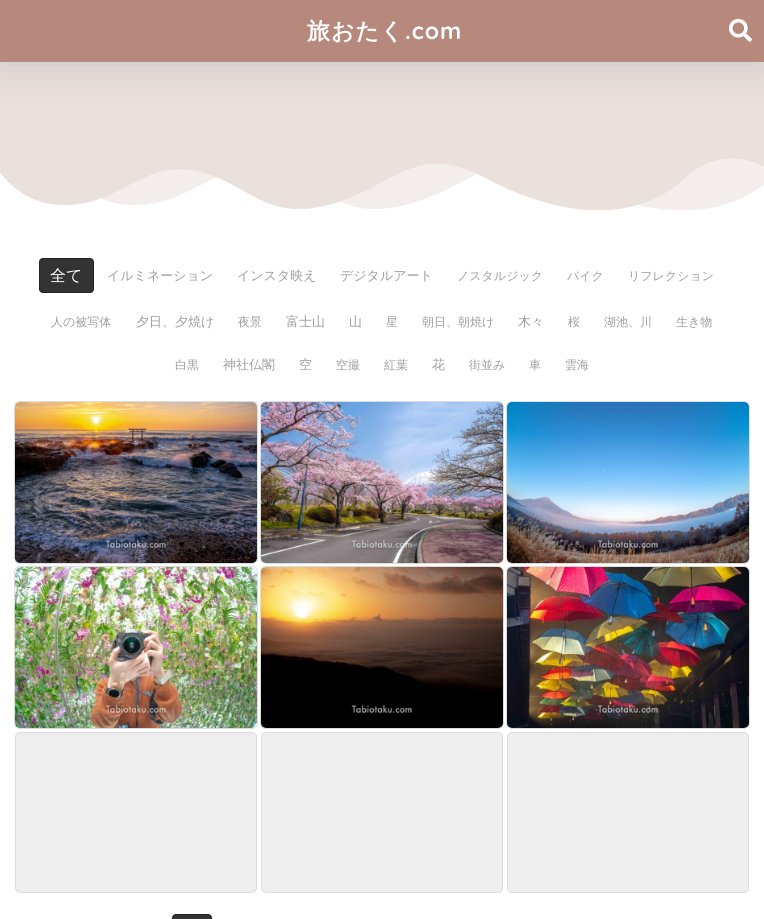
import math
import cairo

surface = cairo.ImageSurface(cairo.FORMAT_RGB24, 764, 919)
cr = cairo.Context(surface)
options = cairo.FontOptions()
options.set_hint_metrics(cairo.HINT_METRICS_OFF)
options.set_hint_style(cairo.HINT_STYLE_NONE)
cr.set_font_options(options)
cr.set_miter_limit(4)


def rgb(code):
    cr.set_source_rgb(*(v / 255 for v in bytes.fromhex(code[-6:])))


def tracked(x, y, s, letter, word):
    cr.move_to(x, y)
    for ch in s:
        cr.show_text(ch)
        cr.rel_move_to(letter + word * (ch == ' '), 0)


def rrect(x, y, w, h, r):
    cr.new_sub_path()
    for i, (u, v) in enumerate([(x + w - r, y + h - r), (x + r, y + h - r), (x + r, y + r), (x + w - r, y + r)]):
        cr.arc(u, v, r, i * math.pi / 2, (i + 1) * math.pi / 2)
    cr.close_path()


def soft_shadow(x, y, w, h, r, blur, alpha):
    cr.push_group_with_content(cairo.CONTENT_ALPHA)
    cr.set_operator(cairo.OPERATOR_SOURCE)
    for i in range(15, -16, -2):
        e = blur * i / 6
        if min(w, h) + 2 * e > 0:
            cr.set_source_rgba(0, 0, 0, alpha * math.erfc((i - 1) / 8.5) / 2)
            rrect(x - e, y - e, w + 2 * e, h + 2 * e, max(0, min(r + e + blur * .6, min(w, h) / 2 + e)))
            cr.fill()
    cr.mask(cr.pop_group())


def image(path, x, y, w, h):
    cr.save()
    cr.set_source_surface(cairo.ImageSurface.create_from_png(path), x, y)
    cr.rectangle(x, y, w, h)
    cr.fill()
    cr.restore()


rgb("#ffffff")
cr.paint()
rgb("#eae1dc")
cr.rectangle(0, 62, 764, 96)
cr.fill()
rgb("#000c42")
soft_shadow(0, 0, 764, 62, 0, 22.5, 0.15)
rgb("#b7897c")
cr.rectangle(0, 0, 764, 62)
cr.fill()
image("img/1.png", 729, 18, 23, 24)
image("img/2.png", 0, 158, 764, 52)
rgb("#333333")
rrect(39.5, 258.5, 54, 34, 3.5)
cr.fill_preserve()
rgb("#222222")
cr.set_line_width(1)
cr.stroke()
rrect(14.5, 401.5, 243, 162, 5.5)
rgb("#dddddd")
cr.stroke()
image("img/3.png", 15, 402, 242, 161)
rrect(260.5, 401.5, 243, 162, 5.5)
cr.stroke()
image("img/4.png", 261, 402, 242, 161)
rrect(506.5, 401.5, 243, 162, 5.5)
cr.stroke()
image("img/5.png", 507, 402, 242, 161)
rrect(14.5, 566.5, 243, 162, 5.5)
cr.stroke()
image("img/6.png", 15, 567, 242, 161)
rrect(260.5, 566.5, 243, 162, 5.5)
cr.stroke()
image("img/7.png", 261, 567, 242, 161)
rrect(506.5, 566.5, 243, 162, 5.5)
cr.stroke()
image("img/8.png", 507, 567, 242, 161)
rgb("#eeeeee")
rrect(15.5, 732.5, 241, 160, 4.5)
cr.fill_preserve()
rgb("#dddddd")
cr.stroke()
rgb("#eeeeee")
rrect(261.5, 732.5, 241, 160, 4.5)
cr.fill_preserve()
rgb("#dddddd")
cr.stroke()
rgb("#eeeeee")
rrect(507.5, 732.5, 241, 160, 4.5)
cr.fill_preserve()
rgb("#dddddd")
cr.stroke()
rgb("#333333")
rrect(172.5, 914.5, 39, 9, 3.5)
cr.fill_preserve()
rgb("#222222")
cr.stroke()
cr.select_font_face("WenQuanYi Zen Hei", cairo.FONT_SLANT_NORMAL, cairo.FONT_WEIGHT_BOLD)
cr.set_font_size(23)
rgb("#ffffff")
tracked(307, 39, "旅おたく", 1, 0)
cr.select_font_face("Quicksand", cairo.FONT_SLANT_NORMAL, cairo.FONT_WEIGHT_BOLD)
tracked(405, 39, ".com", 1, 0)
cr.select_font_face("WenQuanYi Zen Hei Medium")
cr.set_font_size(16)
cr.move_to(50, 281)
cr.show_text("全て")
cr.set_font_size(13)
rgb("#9d9d9d")
for x, y, s in [
    (107, 280, "イルミネーション"),
    (237, 280, "インスタ映え"),
    (340, 280, "デジタルアート"),
]:
    cr.move_to(x, y)
    cr.show_text(s)
cr.set_font_size(12)
for x, y, s in [
    (457, 280, "ノスタルジック"),
    (567, 280, "バイク"),
    (628, 280, "リフレクション"),
    (51, 326, "人の被写体"),
]:
    cr.move_to(x, y)
    cr.show_text(s)
cr.set_font_size(13)
cr.move_to(136, 326)
cr.show_text("夕日、夕焼け")
cr.set_font_size(12)
cr.move_to(238, 326)
cr.show_text("夜景")
cr.set_font_size(13)
cr.move_to(286, 326)
cr.show_text("富士山")
cr.move_to(349, 326)
cr.show_text("山")
cr.set_font_size(12)
cr.move_to(386, 326)
cr.show_text("星")
cr.move_to(422, 326)
cr.show_text("朝日、朝焼け")
cr.set_font_size(13)
cr.move_to(518, 326)
cr.show_text("木々")
cr.set_font_size(12)
for x, y, s in [
    (568, 326, "桜"),
    (604, 326, "湖池、川"),
    (676, 326, "生き物"),
    (175, 369, "白黒"),
]:
    cr.move_to(x, y)
    cr.show_text(s)
cr.set_font_size(13)
cr.move_to(223, 369)
cr.show_text("神社仏閣")
cr.move_to(299, 369)
cr.show_text("空")
cr.set_font_size(12)
cr.move_to(336, 369)
cr.show_text("空撮")
cr.move_to(384, 369)
cr.show_text("紅葉")
cr.set_font_size(13)
cr.move_to(432, 369)
cr.show_text("花")
cr.set_font_size(12)
for x, y, s in [
    (469, 369, "街並み"),
    (529, 369, "車"),
    (565, 369, "雲海"),
]:
    cr.move_to(x, y)
    cr.show_text(s)
surface.write_to_png("page.png")
